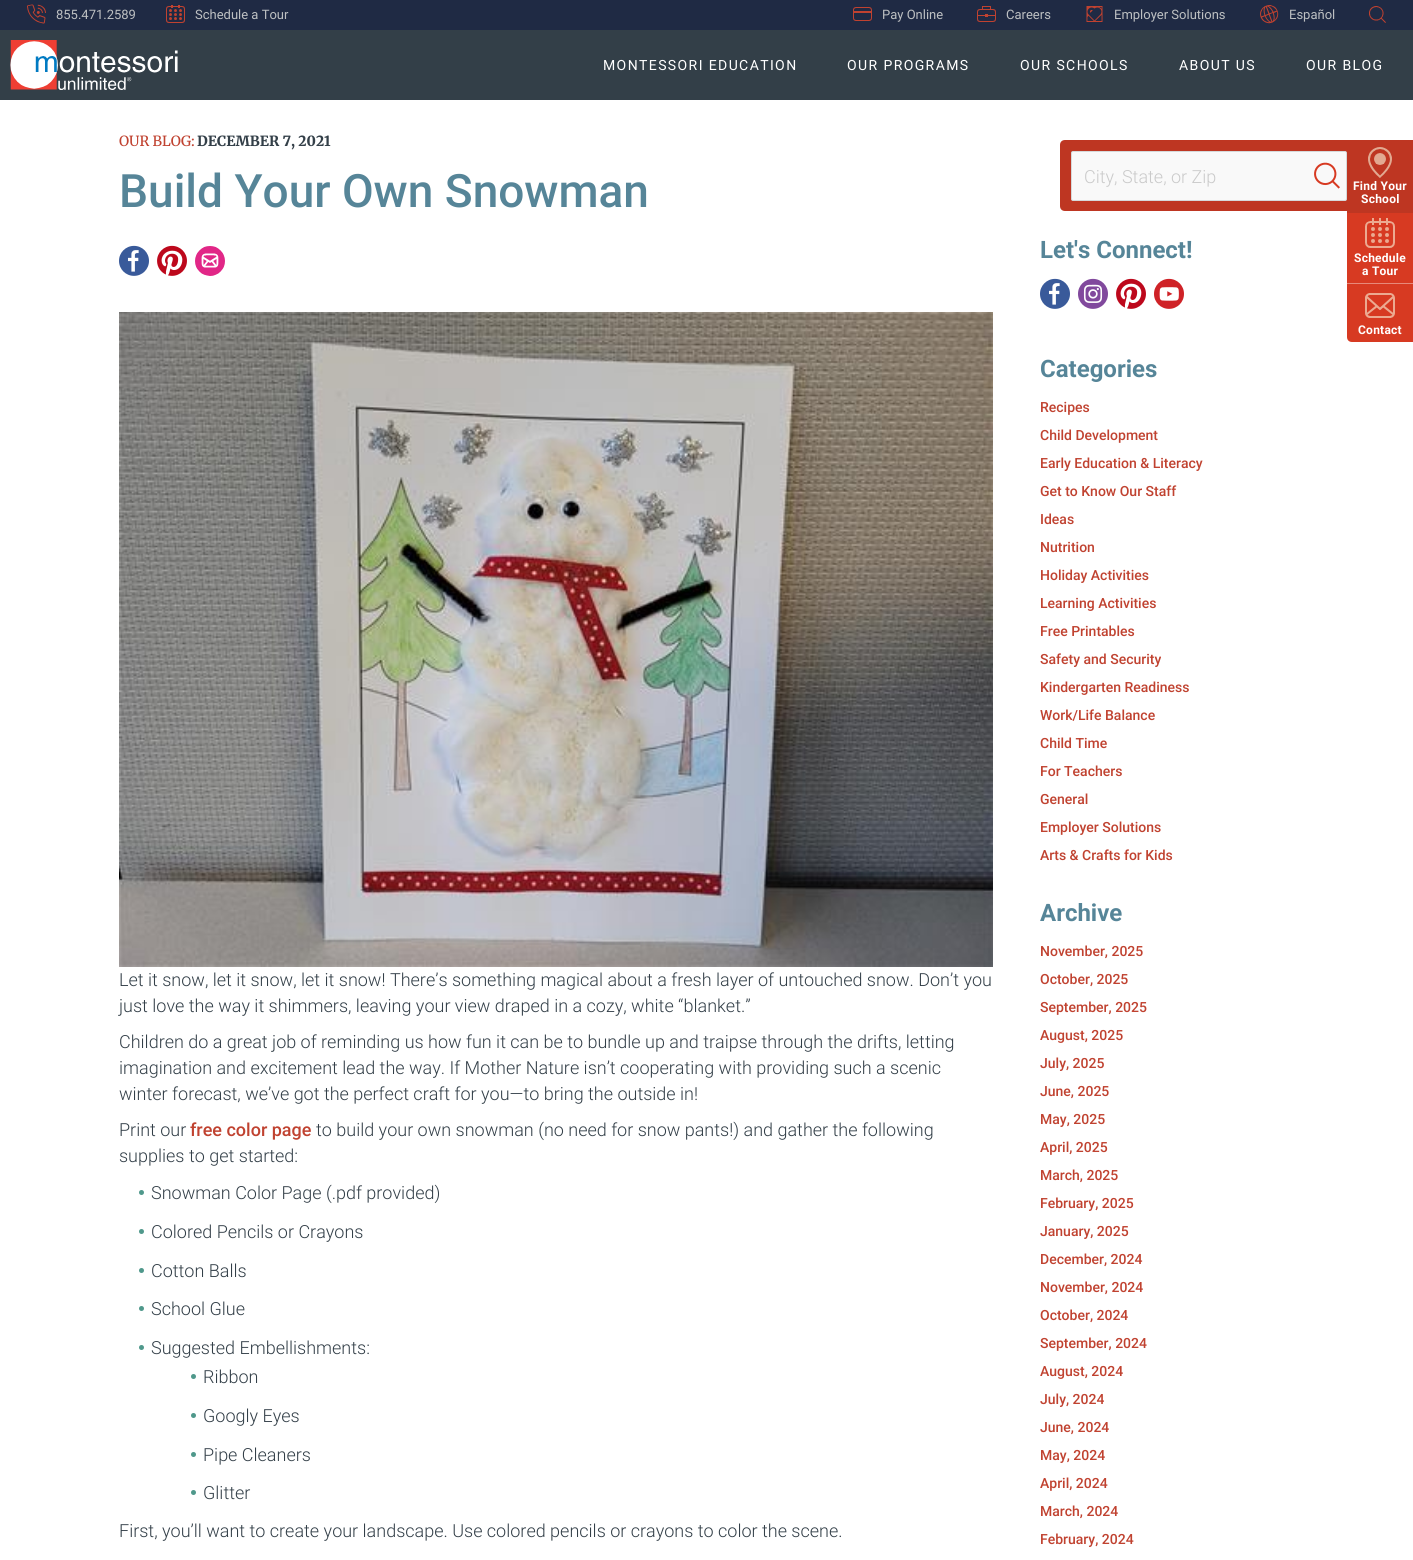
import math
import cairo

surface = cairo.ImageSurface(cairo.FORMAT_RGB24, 1413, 1560)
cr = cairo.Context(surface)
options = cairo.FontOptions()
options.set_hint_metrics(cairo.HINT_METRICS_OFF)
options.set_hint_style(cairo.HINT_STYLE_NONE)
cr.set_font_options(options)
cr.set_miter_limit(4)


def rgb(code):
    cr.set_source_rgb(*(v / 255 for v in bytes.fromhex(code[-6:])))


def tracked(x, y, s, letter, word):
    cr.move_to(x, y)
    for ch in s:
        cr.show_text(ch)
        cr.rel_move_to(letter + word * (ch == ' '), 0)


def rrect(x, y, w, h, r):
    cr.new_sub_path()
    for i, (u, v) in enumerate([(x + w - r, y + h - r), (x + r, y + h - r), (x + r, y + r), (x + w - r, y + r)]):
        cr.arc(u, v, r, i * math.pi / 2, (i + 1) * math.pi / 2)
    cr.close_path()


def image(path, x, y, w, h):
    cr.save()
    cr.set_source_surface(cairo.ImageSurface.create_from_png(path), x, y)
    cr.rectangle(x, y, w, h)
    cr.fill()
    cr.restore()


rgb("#ffffff")
cr.paint()
rgb("#1f2a44")
cr.rectangle(0, 0, 1413, 30)
cr.fill()
image("img/1.png", 27, 4, 19, 20)
image("img/2.png", 166, 5, 19, 18)
image("img/3.png", 853, 7, 19, 14)
image("img/4.png", 977, 6, 19, 16)
image("img/5.png", 1086, 6, 17, 16)
image("img/6.png", 1260, 5, 19, 19)
image("img/7.png", 1369, 6, 17, 17)
rgb("#333f48")
cr.rectangle(0, 30, 1413, 70)
cr.fill()
image("img/8.png", 10, 40, 168, 50)
image("img/9.png", 119, 245, 30, 31)
image("img/10.png", 157, 245, 30, 31)
image("img/11.png", 195, 246, 30, 30)
image("img/12.png", 119, 312, 874, 655)
rgb("#4f988b")
cr.arc(141.5, 1192.5, 2.5, 0, 2 * math.pi)
cr.fill()
cr.arc(141.5, 1231.5, 2.5, 0, 2 * math.pi)
cr.fill()
cr.arc(141.5, 1270.5, 2.5, 0, 2 * math.pi)
cr.fill()
cr.arc(141.5, 1308.5, 2.5, 0, 2 * math.pi)
cr.fill()
cr.arc(141.5, 1347.5, 2.5, 0, 2 * math.pi)
cr.fill()
cr.arc(193.5, 1376.5, 2.5, 0, 2 * math.pi)
cr.fill()
cr.arc(193.5, 1415.5, 2.5, 0, 2 * math.pi)
cr.fill()
cr.arc(193.5, 1454.5, 2.5, 0, 2 * math.pi)
cr.fill()
cr.arc(193.5, 1492.5, 2.5, 0, 2 * math.pi)
cr.fill()
image("img/9.png", 1040, 278, 30, 31)
image("img/13.png", 1078, 278, 30, 31)
image("img/10.png", 1116, 278, 30, 31)
image("img/14.png", 1154, 278, 30, 31)
rgb("#be3622")
cr.new_path()
cr.move_to(1065, 140)
cr.line_to(1413, 140)
cr.line_to(1413, 211)
cr.line_to(1065, 211)
cr.curve_to(1062, 211, 1060, 209, 1060, 206)
cr.line_to(1060, 145)
cr.curve_to(1060, 142, 1062, 140, 1065, 140)
cr.close_path()
cr.fill()
rgb("#f9f9f9")
rrect(1071.5, 151.5, 275, 49, 1.5)
cr.fill_preserve()
rgb("#d6d9da")
cr.set_line_width(1)
cr.stroke()
image("img/15.png", 1314, 162, 26, 27)
rgb("#be3622")
cr.new_path()
cr.move_to(1352, 140)
cr.line_to(1413, 140)
cr.line_to(1413, 213)
cr.line_to(1347, 213)
cr.line_to(1347, 145)
cr.curve_to(1347, 142, 1349, 140, 1352, 140)
cr.close_path()
cr.fill()
image("img/16.png", 1368, 147, 24, 31)
rgb("#d73a22")
cr.rectangle(1347, 213, 66, 70)
cr.fill()
image("img/17.png", 1365, 218, 30, 30)
cr.new_path()
cr.move_to(1347, 283)
cr.line_to(1413, 283)
cr.line_to(1413, 342)
cr.line_to(1352, 342)
cr.curve_to(1349, 342, 1347, 340, 1347, 337)
cr.close_path()
cr.fill()
rgb("#e7897a")
cr.rectangle(1347, 283, 66, 1)
cr.fill()
image("img/18.png", 1365, 293, 30, 25)
cr.select_font_face("Roboto")
cr.set_font_size(13)
rgb("#bdc0c2")
for x, y, s in [
    (56, 19, "855.471.2589"),
    (195, 19, "Schedule a Tour"),
    (882, 19, "Pay Online"),
    (1006, 19, "Careers"),
    (1114, 19, "Employer Solutions"),
    (1289, 19, "Español"),
]:
    cr.move_to(x, y)
    cr.show_text(s)
cr.set_font_size(14)
rgb("#ffffff")
for x, y, s in [
    (603, 70, "MONTESSORI EDUCATION"),
    (847, 70, "OUR PROGRAMS"),
    (1020, 70, "OUR SCHOOLS"),
    (1179, 70, "ABOUT US"),
    (1306, 70, "OUR BLOG"),
]:
    tracked(x, y, s, 1.4, 0)
cr.select_font_face("Merriweather Medium")
rgb("#c04230")
cr.move_to(119, 146)
cr.show_text("OUR BLOG:")
cr.select_font_face("Merriweather ExtraBold")
rgb("#333f48")
cr.move_to(197, 146)
cr.show_text("DECEMBER 7, 2021")
cr.select_font_face("Roboto Medium")
cr.set_font_size(46)
rgb("#568598")
cr.move_to(119, 207)
cr.show_text("Build Your Own Snowman")
cr.select_font_face("Roboto Light")
cr.set_font_size(18)
rgb("#333f48")
for x, y, s in [
    (119, 986, "Let it snow, let it snow, let it snow! There’s something magical about a fresh layer of untouched snow. Don’t you"),
    (119, 1012, "just love the way it shimmers, leaving your view draped in a cozy, white “blanket.”"),
    (119, 1048, "Children do a great job of reminding us how fun it can be to bundle up and traipse through the drifts, letting"),
    (119, 1074, "imagination and excitement lead the way. If Mother Nature isn’t cooperating with providing such a scenic"),
    (119, 1100, "winter forecast, we’ve got the perfect craft for you—to bring the outside in!"),
    (119, 1136, "Print our"),
]:
    cr.move_to(x, y)
    cr.show_text(s)
cr.select_font_face("Roboto Medium")
rgb("#c04230")
cr.move_to(190, 1136)
cr.show_text("free color page")
cr.select_font_face("Roboto Light")
rgb("#333f48")
for x, y, s in [
    (316, 1136, "to build your own snowman (no need for snow pants!) and gather the following"),
    (119, 1162, "supplies to get started:"),
    (151, 1199, "Snowman Color Page (.pdf provided)"),
    (151, 1238, "Colored Pencils or Crayons"),
    (151, 1277, "Cotton Balls"),
    (151, 1315, "School Glue"),
    (151, 1354, "Suggested Embellishments:"),
    (203, 1383, "Ribbon"),
    (203, 1422, "Googly Eyes"),
    (203, 1461, "Pipe Cleaners"),
    (203, 1499, "Glitter"),
    (119, 1537, "First, you’ll want to create your landscape. Use colored pencils or crayons to color the scene."),
]:
    cr.move_to(x, y)
    cr.show_text(s)
cr.select_font_face("Roboto", cairo.FONT_SLANT_NORMAL, cairo.FONT_WEIGHT_BOLD)
cr.set_font_size(24)
rgb("#568598")
cr.move_to(1040, 258)
cr.show_text("Let's Connect!")
cr.move_to(1040, 377)
cr.show_text("Categories")
cr.select_font_face("Roboto Medium")
cr.set_font_size(14)
rgb("#c04230")
for x, y, s in [
    (1040, 412, "Recipes"),
    (1040, 440, "Child Development"),
    (1040, 468, "Early Education & Literacy"),
    (1040, 496, "Get to Know Our Staff"),
    (1040, 524, "Ideas"),
    (1040, 552, "Nutrition"),
    (1040, 580, "Holiday Activities"),
    (1040, 608, "Learning Activities"),
    (1040, 636, "Free Printables"),
    (1040, 664, "Safety and Security"),
    (1040, 692, "Kindergarten Readiness"),
    (1040, 720, "Work/Life Balance"),
    (1040, 748, "Child Time"),
    (1040, 776, "For Teachers"),
    (1040, 804, "General"),
    (1040, 832, "Employer Solutions"),
    (1040, 860, "Arts & Crafts for Kids"),
]:
    cr.move_to(x, y)
    cr.show_text(s)
cr.select_font_face("Roboto", cairo.FONT_SLANT_NORMAL, cairo.FONT_WEIGHT_BOLD)
cr.set_font_size(24)
rgb("#568598")
cr.move_to(1040, 921)
cr.show_text("Archive")
cr.select_font_face("Roboto Medium")
cr.set_font_size(14)
rgb("#c04230")
for x, y, s in [
    (1040, 956, "November, 2025"),
    (1040, 984, "October, 2025"),
    (1040, 1012, "September, 2025"),
    (1040, 1040, "August, 2025"),
    (1040, 1068, "July, 2025"),
    (1040, 1096, "June, 2025"),
    (1040, 1124, "May, 2025"),
    (1040, 1152, "April, 2025"),
    (1040, 1180, "March, 2025"),
    (1040, 1208, "February, 2025"),
    (1040, 1236, "January, 2025"),
    (1040, 1264, "December, 2024"),
    (1040, 1292, "November, 2024"),
    (1040, 1320, "October, 2024"),
    (1040, 1348, "September, 2024"),
    (1040, 1376, "August, 2024"),
    (1040, 1404, "July, 2024"),
    (1040, 1432, "June, 2024"),
    (1040, 1460, "May, 2024"),
    (1040, 1488, "April, 2024"),
    (1040, 1516, "March, 2024"),
    (1040, 1544, "February, 2024"),
]:
    cr.move_to(x, y)
    cr.show_text(s)
cr.select_font_face("Roboto Light")
cr.set_font_size(18)
rgb("#cacaca")
cr.move_to(1084, 183)
cr.show_text("City, State, or Zip")
cr.select_font_face("Roboto", cairo.FONT_SLANT_NORMAL, cairo.FONT_WEIGHT_BOLD)
cr.set_font_size(12)
rgb("#ffffff")
for x, y, s in [
    (1353, 190, "Find Your"),
    (1361, 203, "School"),
    (1354, 262, "Schedule"),
    (1362, 275, "a Tour"),
    (1358, 334, "Contact"),
]:
    tracked(x, y, s, 0.25, 0)
surface.write_to_png("page.png")
